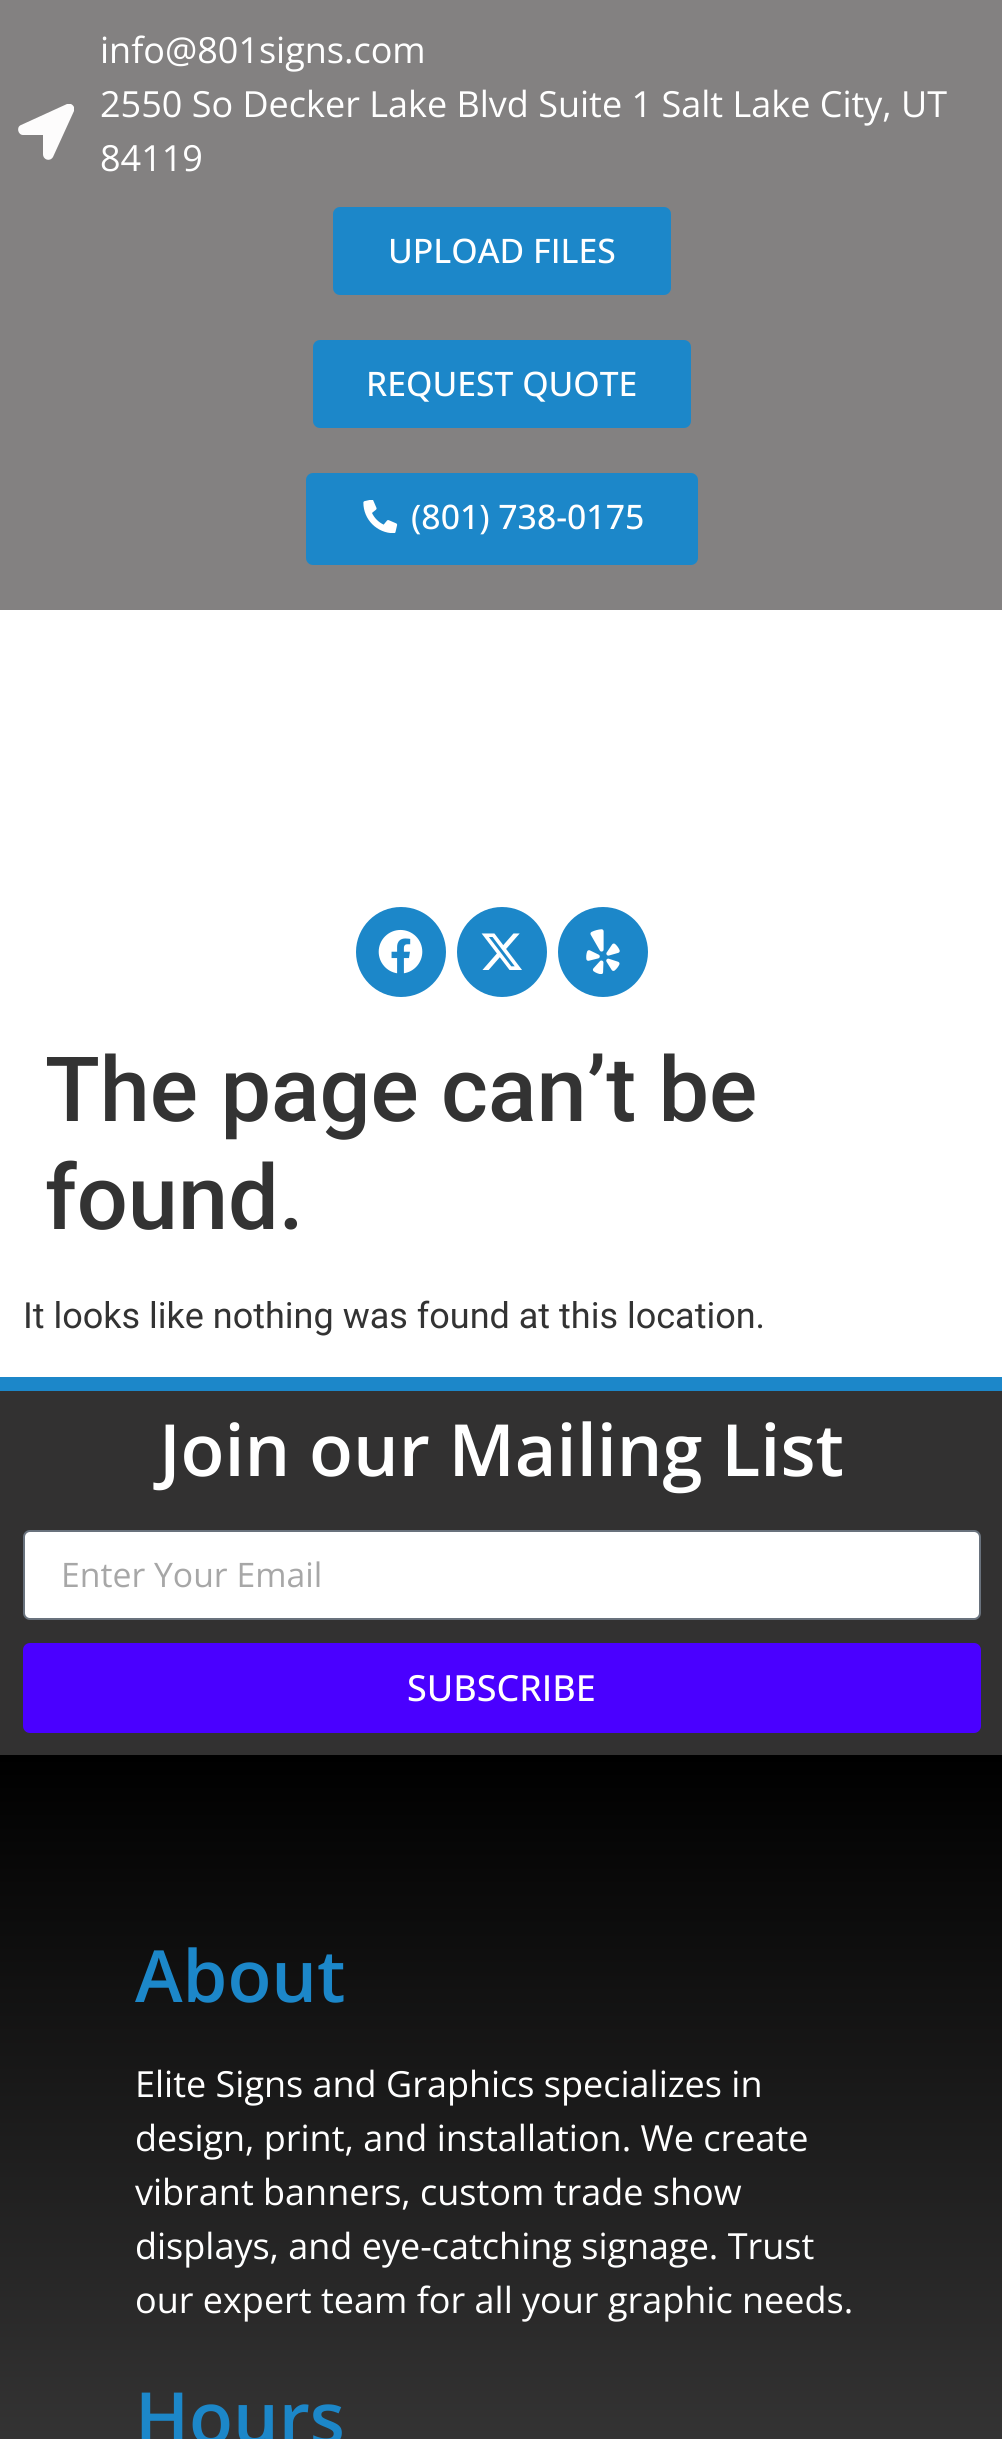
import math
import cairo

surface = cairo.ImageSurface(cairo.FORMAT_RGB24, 1002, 2439)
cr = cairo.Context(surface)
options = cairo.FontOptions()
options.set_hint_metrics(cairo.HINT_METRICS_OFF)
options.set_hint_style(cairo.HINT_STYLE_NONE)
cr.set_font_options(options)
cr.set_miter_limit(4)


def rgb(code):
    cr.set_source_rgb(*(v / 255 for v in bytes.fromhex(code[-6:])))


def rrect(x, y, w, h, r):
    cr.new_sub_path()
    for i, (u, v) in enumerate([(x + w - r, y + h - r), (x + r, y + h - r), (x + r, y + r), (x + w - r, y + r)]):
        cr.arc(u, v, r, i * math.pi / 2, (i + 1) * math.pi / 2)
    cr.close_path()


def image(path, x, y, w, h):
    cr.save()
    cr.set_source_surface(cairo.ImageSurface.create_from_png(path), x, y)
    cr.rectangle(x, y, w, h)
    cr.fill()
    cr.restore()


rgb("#ffffff")
cr.paint()
rgb("#838181")
cr.rectangle(0, 0, 1002, 610)
cr.fill()
cr.save()
cr.rectangle(18, 104, 56, 56)
cr.clip()
rgb("#fdfcfc")
cr.new_path()
cr.move_to(67, 104)
cr.line_to(21, 125)
cr.curve_to(16, 127, 18, 135, 23, 135)
cr.line_to(43, 135)
cr.line_to(43, 154)
cr.curve_to(43, 160, 50, 162, 53, 157)
cr.line_to(74, 111)
cr.curve_to(76, 107, 71, 102, 67, 104)
cr.close_path()
cr.fill()
cr.restore()
rgb("#1c87c9")
rrect(333, 207, 338, 88, 7)
cr.fill()
rrect(313, 340, 378, 88, 7)
cr.fill()
rrect(306, 473, 392, 92, 7)
cr.fill()
image("img/1.png", 363, 500, 35, 33)
cr.arc(401, 952, 45, 0, 2 * math.pi)
cr.fill()
image("img/2.png", 378, 929, 45, 45)
cr.arc(502, 952, 45, 0, 2 * math.pi)
cr.fill()
image("img/3.png", 481, 933, 41, 37)
cr.arc(603, 952, 45, 0, 2 * math.pi)
cr.fill()
image("img/4.png", 586, 929, 34, 45)
rgb("#323131")
cr.rectangle(0, 1391, 1002, 364)
cr.fill()
rgb("#1c87c9")
cr.rectangle(0, 1377, 1002, 14)
cr.fill()
rgb("#ffffff")
rrect(24, 1531, 956, 88, 6)
cr.fill_preserve()
rgb("#69727d")
cr.stroke()
rgb("#4a00ff")
rrect(23, 1643, 958, 90, 7)
cr.fill()
gradient = cairo.LinearGradient(502, 1755, 502, 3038)
gradient.add_color_stop_rgba(0, 0, 0, 0, 1)
gradient.add_color_stop_rgba(1, 0.38, 0.376, 0.376, 1)
cr.set_source(gradient)
cr.rectangle(0, 1755, 1002, 684)
cr.fill()
cr.select_font_face("Open Sans")
cr.set_font_size(36)
rgb("#ffffff")
for x, y, s in [
    (100, 63, "info@801signs.com"),
    (100, 117, "2550 So Decker Lake Blvd Suite 1 Salt Lake City, UT"),
    (100, 171, "84119"),
]:
    cr.move_to(x, y)
    cr.show_text(s)
cr.select_font_face("Open Sans Medium")
cr.set_font_size(33.75)
for x, y, s in [
    (388, 263, "UPLOAD FILES"),
    (366, 396, "REQUEST QUOTE"),
    (411, 529, "(801) 738-0175"),
]:
    cr.move_to(x, y)
    cr.show_text(s)
cr.select_font_face("Roboto Medium")
cr.set_font_size(90)
rgb("#333333")
cr.move_to(45, 1121)
cr.show_text("The page can’t be")
cr.move_to(45, 1229)
cr.show_text("found.")
cr.select_font_face("Roboto")
cr.set_font_size(36)
cr.move_to(23, 1328)
cr.show_text("It looks like nothing was found at this location.")
cr.select_font_face("Open Sans SemiBold")
cr.set_font_size(72)
rgb("#ffffff")
cr.move_to(159, 1476)
cr.show_text("Join our Mailing List")
cr.select_font_face("Open Sans")
cr.set_font_size(33.75)
rgb("#a7a7a7")
cr.move_to(61, 1587)
cr.show_text("Enter Your Email")
cr.select_font_face("Open Sans Medium")
cr.set_font_size(36)
rgb("#ffffff")
cr.move_to(407, 1701)
cr.show_text("SUBSCRIBE")
cr.select_font_face("Open Sans SemiBold")
cr.set_font_size(72)
rgb("#1c87c9")
cr.move_to(135, 2002)
cr.show_text("About")
cr.select_font_face("Open Sans")
cr.set_font_size(36)
rgb("#ffffff")
for x, y, s in [
    (135, 2097, "Elite Signs and Graphics specializes in"),
    (135, 2151, "design, print, and installation. We create"),
    (135, 2205, "vibrant banners, custom trade show"),
    (135, 2259, "displays, and eye-catching signage. Trust"),
    (135, 2313, "our expert team for all your graphic needs."),
]:
    cr.move_to(x, y)
    cr.show_text(s)
cr.select_font_face("Open Sans SemiBold")
cr.set_font_size(72)
rgb("#1c87c9")
cr.move_to(135, 2444)
cr.show_text("Hours")
surface.write_to_png("page.png")
